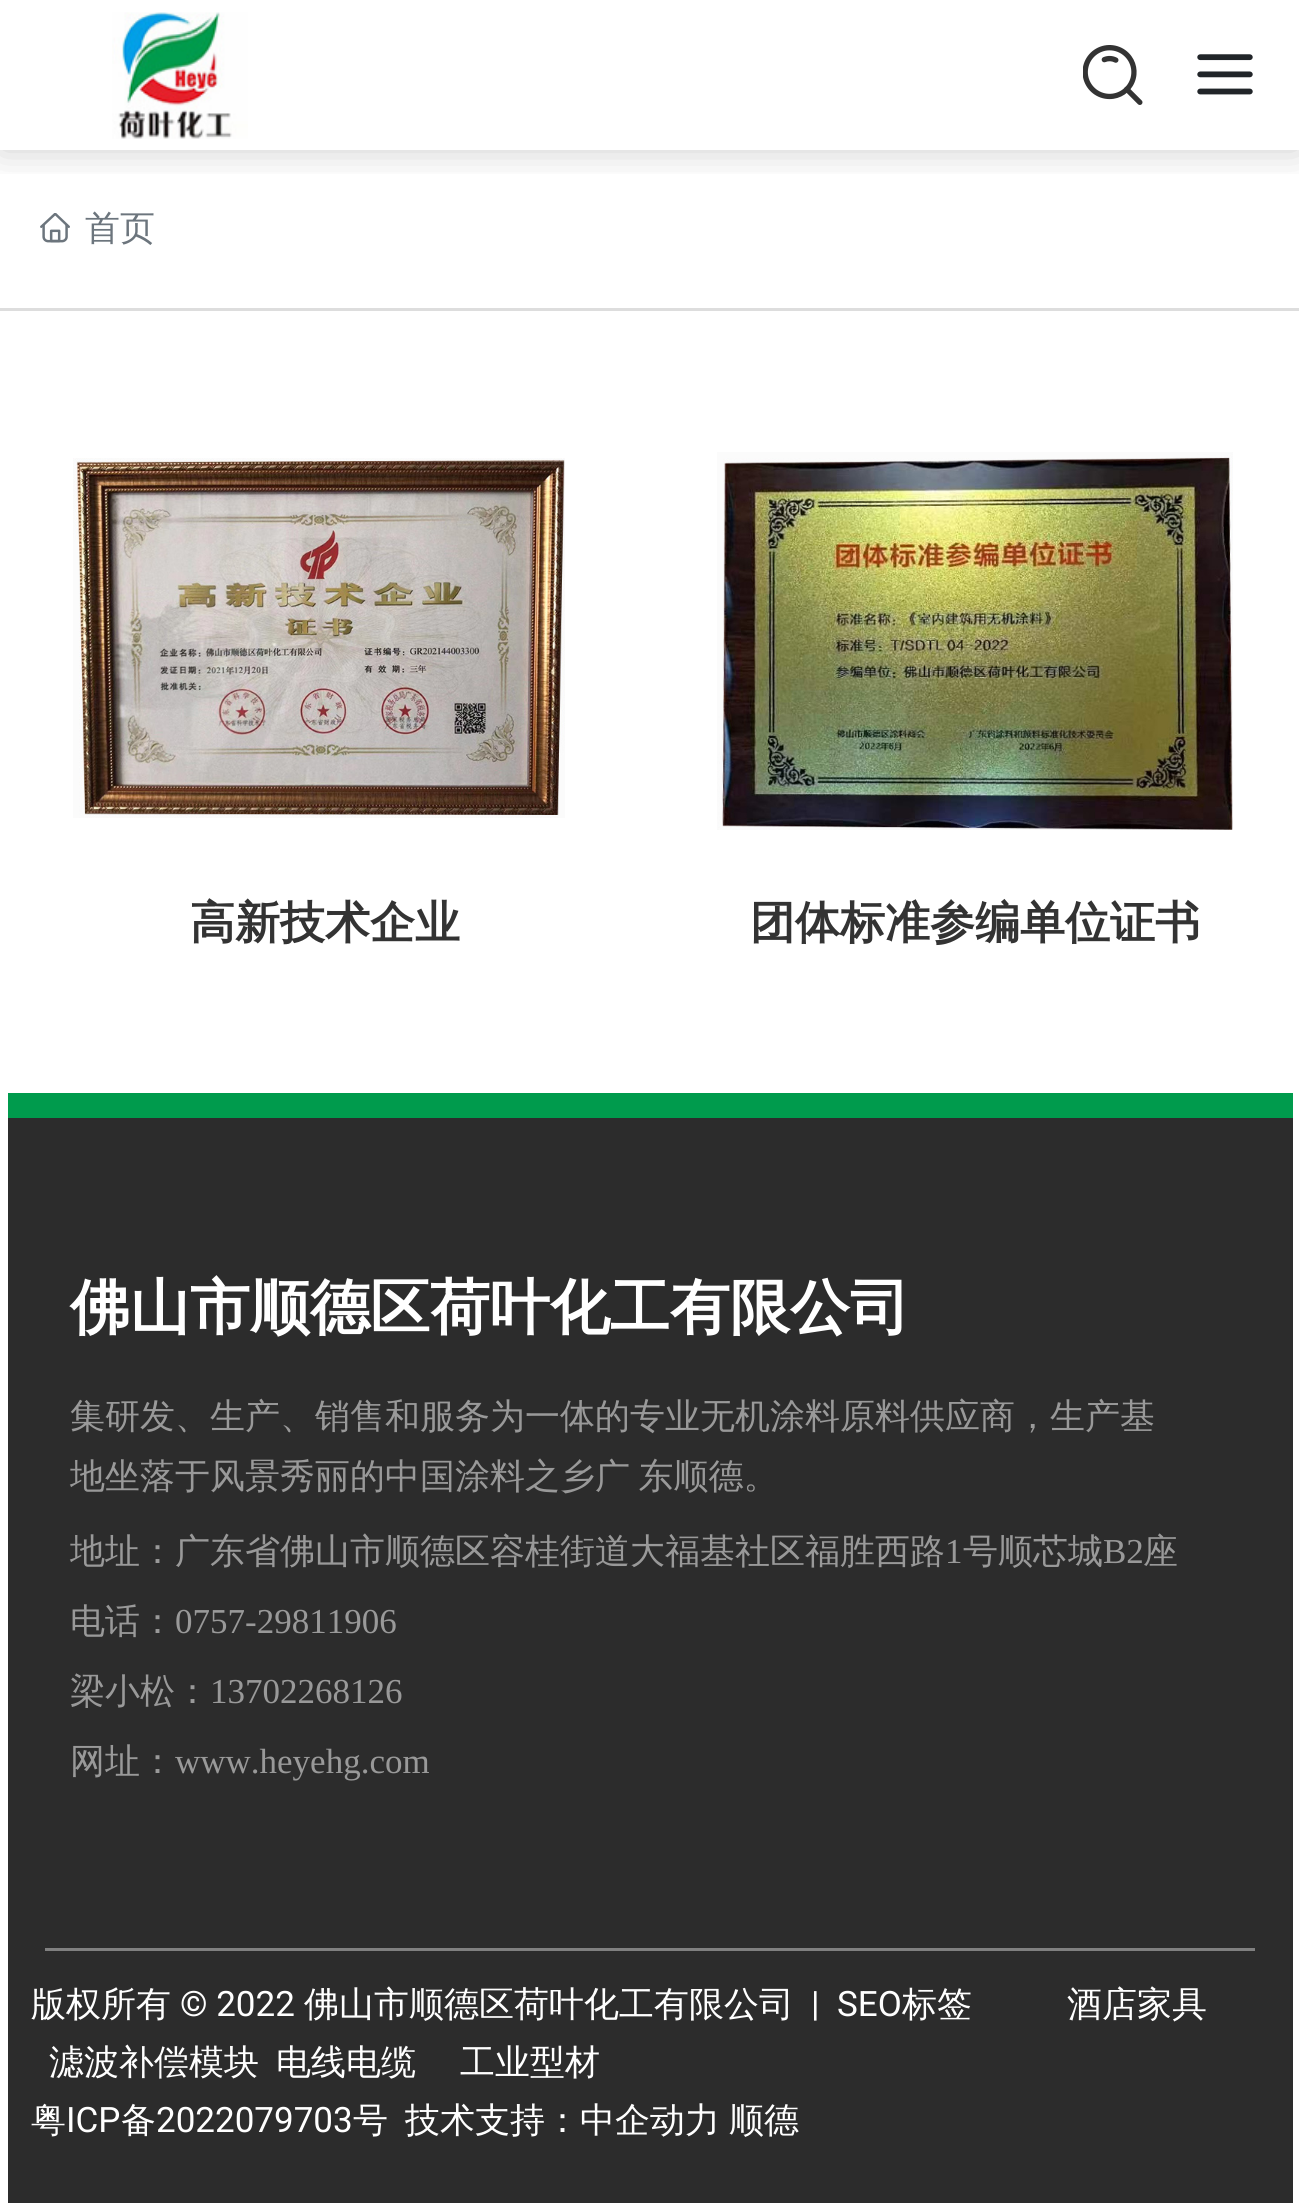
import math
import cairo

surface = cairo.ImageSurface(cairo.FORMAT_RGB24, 1299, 2203)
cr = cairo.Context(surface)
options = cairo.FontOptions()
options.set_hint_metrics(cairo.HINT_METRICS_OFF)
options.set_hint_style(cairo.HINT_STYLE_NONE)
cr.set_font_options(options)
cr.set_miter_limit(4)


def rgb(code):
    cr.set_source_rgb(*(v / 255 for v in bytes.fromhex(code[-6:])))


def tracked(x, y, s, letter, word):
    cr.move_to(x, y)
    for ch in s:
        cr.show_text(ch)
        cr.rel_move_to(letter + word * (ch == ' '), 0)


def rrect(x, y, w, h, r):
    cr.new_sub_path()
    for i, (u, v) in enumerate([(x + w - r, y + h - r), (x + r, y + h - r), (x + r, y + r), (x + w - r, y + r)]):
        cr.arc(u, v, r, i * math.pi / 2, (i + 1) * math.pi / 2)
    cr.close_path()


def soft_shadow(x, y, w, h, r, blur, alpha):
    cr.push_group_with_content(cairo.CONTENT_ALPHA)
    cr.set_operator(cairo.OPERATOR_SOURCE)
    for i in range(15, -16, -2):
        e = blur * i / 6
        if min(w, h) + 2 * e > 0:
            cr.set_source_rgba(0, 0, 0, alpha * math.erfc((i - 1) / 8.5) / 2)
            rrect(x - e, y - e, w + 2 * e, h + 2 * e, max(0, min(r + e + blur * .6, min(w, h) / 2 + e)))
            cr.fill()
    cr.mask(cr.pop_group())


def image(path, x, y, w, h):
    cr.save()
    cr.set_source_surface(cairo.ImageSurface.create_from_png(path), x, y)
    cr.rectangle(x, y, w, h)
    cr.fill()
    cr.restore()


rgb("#ffffff")
cr.paint()
cr.save()
cr.rectangle(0, 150, 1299, 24)
cr.clip()
rgb("#000000")
soft_shadow(0, 0, 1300, 150, 0, 19, 0.2)
cr.restore()
image("img/1.png", 112, 12, 136, 127)
image("img/2.png", 1083, 45, 60, 60)
image("img/3.png", 1197, 54, 56, 41)
rgb("#dddddd")
cr.rectangle(0, 308, 1299, 3)
cr.fill()
image("img/4.png", 40, 213, 30, 30)
image("img/5.png", 73, 458, 492, 360)
image("img/6.png", 717, 452, 516, 378)
for x, y, w, h, color in [
    (8, 1118, 1285, 1085, "#2c2c2c"),
    (8, 1093, 1285, 25, "#009b4d"),
    (45, 1948, 1210, 3, "#808080"),
]:
    rgb(color)
    cr.rectangle(x, y, w, h)
    cr.fill()
cr.select_font_face("WenQuanYi Zen Hei Medium")
cr.set_font_size(35)
rgb("#6c757d")
cr.move_to(85, 240)
cr.show_text("首页")
cr.select_font_face("WenQuanYi Zen Hei", cairo.FONT_SLANT_NORMAL, cairo.FONT_WEIGHT_BOLD)
cr.set_font_size(45)
rgb("#333333")
cr.move_to(190, 938)
cr.show_text("高新技术企业")
cr.move_to(750, 938)
cr.show_text("团体标准参编单位证书")
cr.set_font_size(60)
rgb("#ffffff")
cr.move_to(70, 1328)
cr.show_text("佛山市顺德区荷叶化工有限公司")
cr.select_font_face("WenQuanYi Zen Hei Medium")
cr.set_font_size(35)
rgb("#999999")
cr.move_to(70, 1428)
cr.show_text("集研发、生产、销售和服务为一体的专业无机涂料原料供应商，生产基")
tracked(70, 1488, "地坐落于风景秀丽的中国涂料之乡广 东顺德。", 0, -2)
cr.move_to(70, 1563)
cr.show_text("地址：广东省佛山市顺德区容桂街道大福基社区福胜西路")
cr.select_font_face("Liberation Serif")
cr.move_to(945, 1563)
cr.show_text("1")
cr.select_font_face("WenQuanYi Zen Hei Medium")
cr.move_to(963, 1563)
cr.show_text("号顺芯城")
cr.select_font_face("Liberation Serif")
cr.move_to(1103, 1563)
cr.show_text("B2")
cr.select_font_face("WenQuanYi Zen Hei Medium")
cr.move_to(1143, 1563)
cr.show_text("座")
cr.move_to(70, 1633)
cr.show_text("电话：")
cr.select_font_face("Liberation Serif")
cr.move_to(175, 1633)
cr.show_text("0757-29811906")
cr.select_font_face("WenQuanYi Zen Hei Medium")
cr.move_to(70, 1703)
cr.show_text("梁小松：")
cr.select_font_face("Liberation Serif")
cr.move_to(210, 1703)
cr.show_text("13702268126")
cr.select_font_face("WenQuanYi Zen Hei Medium")
cr.move_to(70, 1773)
cr.show_text("网址：")
cr.select_font_face("Liberation Serif")
cr.move_to(175, 1773)
cr.show_text("www.heyehg.com")
cr.select_font_face("WenQuanYi Zen Hei Medium")
rgb("#ffffff")
cr.move_to(31, 2016)
cr.show_text("版权所有")
cr.select_font_face("Roboto")
cr.move_to(180, 2016)
cr.show_text("© 2022")
cr.select_font_face("WenQuanYi Zen Hei Medium")
cr.move_to(304, 2016)
cr.show_text("佛山市顺德区荷叶化工有限公司")
cr.select_font_face("Roboto")
cr.move_to(811, 2016)
cr.show_text("|")
cr.move_to(837, 2016)
cr.show_text("SEO")
cr.select_font_face("WenQuanYi Zen Hei Medium")
for x, y, s in [
    (902, 2016, "标签"),
    (1067, 2016, "酒店家具"),
    (49, 2074, "滤波补偿模块"),
    (276, 2074, "电线电缆"),
    (460, 2074, "工业型材"),
    (31, 2132, "粤"),
]:
    cr.move_to(x, y)
    cr.show_text(s)
cr.select_font_face("Roboto")
cr.move_to(66, 2132)
cr.show_text("ICP")
cr.select_font_face("WenQuanYi Zen Hei Medium")
cr.move_to(121, 2132)
cr.show_text("备")
cr.select_font_face("Roboto")
cr.move_to(156, 2132)
cr.show_text("2022079703")
cr.select_font_face("WenQuanYi Zen Hei Medium")
for x, y, s in [
    (353, 2132, "号"),
    (405, 2132, "技术支持：中企动力"),
    (729, 2132, "顺德"),
]:
    cr.move_to(x, y)
    cr.show_text(s)
surface.write_to_png("page.png")
